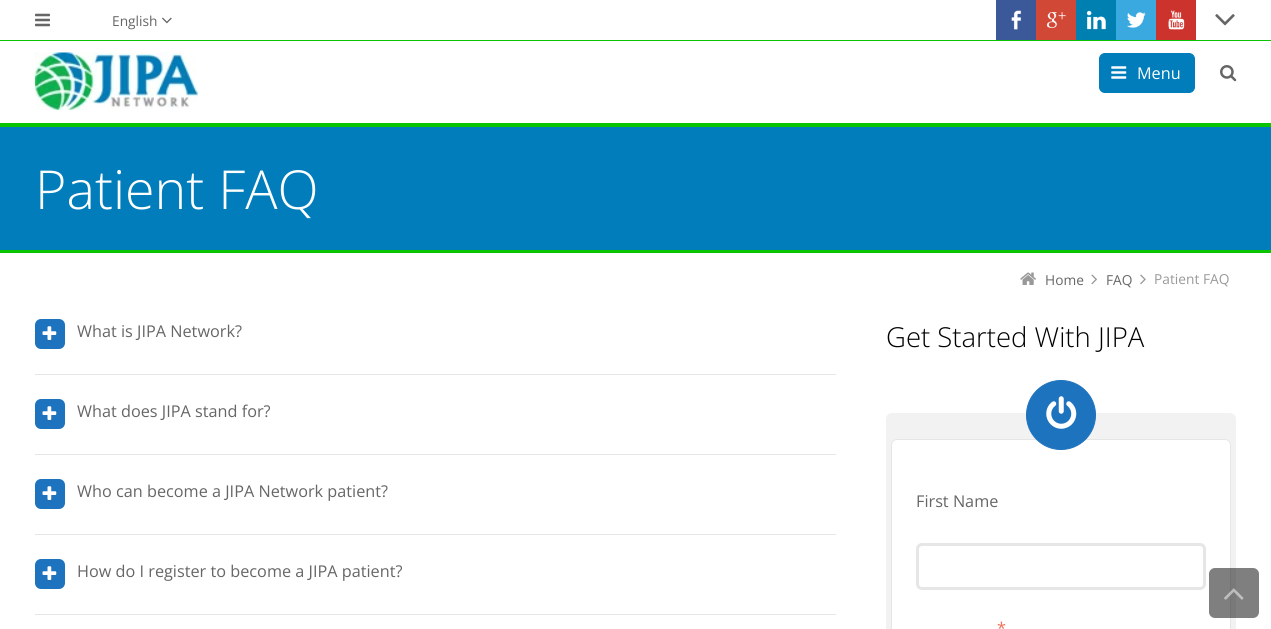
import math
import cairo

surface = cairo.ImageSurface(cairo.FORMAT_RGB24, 1271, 629)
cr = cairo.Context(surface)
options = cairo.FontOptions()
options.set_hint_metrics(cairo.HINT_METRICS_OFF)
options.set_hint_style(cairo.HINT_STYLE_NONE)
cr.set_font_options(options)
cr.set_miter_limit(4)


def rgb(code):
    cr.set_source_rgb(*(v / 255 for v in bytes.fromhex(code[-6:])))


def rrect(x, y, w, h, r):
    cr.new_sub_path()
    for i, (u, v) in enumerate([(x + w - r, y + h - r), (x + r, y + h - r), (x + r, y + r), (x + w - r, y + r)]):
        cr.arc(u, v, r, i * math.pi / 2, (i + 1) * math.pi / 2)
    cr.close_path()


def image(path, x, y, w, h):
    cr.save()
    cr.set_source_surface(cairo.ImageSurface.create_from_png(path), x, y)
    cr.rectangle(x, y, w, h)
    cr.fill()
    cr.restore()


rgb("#ffffff")
cr.paint()
rgb("#09c400")
cr.rectangle(0, 123, 1271, 4)
cr.fill()
image("img/1.png", 35, 13, 15, 14)
image("img/2.png", 162, 17, 10, 7)
rgb("#3b5998")
cr.rectangle(996, 0, 40, 40)
cr.fill()
image("img/3.png", 1011, 10, 11, 20)
rgb("#d14836")
cr.rectangle(1036, 0, 40, 40)
cr.fill()
image("img/4.png", 1046, 12, 20, 16)
rgb("#007fb1")
cr.rectangle(1076, 0, 40, 40)
cr.fill()
image("img/5.png", 1086, 10, 20, 20)
rgb("#39a9e0")
cr.rectangle(1116, 0, 40, 40)
cr.fill()
image("img/6.png", 1127, 12, 19, 16)
rgb("#cd332d")
cr.rectangle(1156, 0, 40, 40)
cr.fill()
image("img/7.png", 1168, 10, 17, 20)
image("img/8.png", 1215, 14, 20, 12)
rgb("#09c400")
cr.rectangle(0, 40, 1271, 1)
cr.fill()
image("img/9.png", 35, 52, 163, 58)
rgb("#007dba")
rrect(1099.5, 53.5, 95, 39, 5.5)
cr.fill_preserve()
cr.set_line_width(1)
cr.stroke()
image("img/10.png", 1111, 66, 16, 13)
image("img/11.png", 1220, 65, 17, 17)
cr.rectangle(0, 127, 1271, 123)
cr.fill()
rgb("#09c400")
cr.rectangle(0, 250, 1271, 3)
cr.fill()
image("img/12.png", 1020, 272, 16, 13)
image("img/13.png", 1091, 274, 6, 11)
image("img/14.png", 1140, 274, 6, 11)
rgb("#1e73be")
rrect(35, 319, 30, 30, 6)
cr.fill()
image("img/15.png", 42, 326, 15, 14)
rgb("#e6e6e6")
cr.rectangle(35, 374, 801, 1)
cr.fill()
rgb("#1e73be")
rrect(35, 399, 30, 30, 6)
cr.fill()
image("img/15.png", 42, 406, 15, 14)
rgb("#e6e6e6")
cr.rectangle(35, 454, 801, 1)
cr.fill()
rgb("#1e73be")
rrect(35, 479, 30, 30, 6)
cr.fill()
image("img/15.png", 42, 486, 15, 14)
rgb("#e6e6e6")
cr.rectangle(35, 534, 801, 1)
cr.fill()
rgb("#1e73be")
rrect(35, 559, 30, 30, 6)
cr.fill()
image("img/15.png", 42, 566, 15, 14)
rgb("#e6e6e6")
cr.rectangle(35, 614, 801, 1)
cr.fill()
rgb("#f2f2f2")
rrect(886, 413, 350, 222, 6)
cr.fill()
rgb("#ffffff")
rrect(891.5, 439.5, 339, 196, 5.5)
cr.fill_preserve()
rgb("#e6e6e6")
cr.stroke()
rgb("#1e73be")
cr.arc(1061, 415, 34.5, 0, 2 * math.pi)
cr.fill_preserve()
cr.stroke()
image("img/16.png", 1046, 396, 31, 33)
rrect(917.5, 544.5, 287, 44, 4.5)
rgb("#e6e6e6")
cr.set_line_width(3)
cr.stroke()
cr.set_source_rgba(0, 0, 0, 0.5)
rrect(1209, 568, 50, 50, 6)
cr.fill()
image("img/17.png", 1224, 588, 20, 12)
cr.select_font_face("Open Sans")
cr.set_font_size(13.75)
rgb("#666666")
cr.move_to(112, 26)
cr.show_text("English")
cr.set_font_size(16.25)
rgb("#ffffff")
cr.move_to(1137, 79)
cr.show_text("Menu")
cr.select_font_face("Open Sans Light")
cr.set_font_size(53.75)
cr.move_to(35, 209)
cr.show_text("Patient FAQ")
cr.select_font_face("Open Sans")
cr.set_font_size(13.75)
rgb("#666666")
cr.move_to(1045, 285)
cr.show_text("Home")
cr.move_to(1106, 285)
cr.show_text("FAQ")
rgb("#999999")
cr.move_to(1154, 284)
cr.show_text("Patient FAQ")
cr.set_font_size(16.25)
rgb("#666666")
for x, y, s in [
    (77, 337, "What is JIPA Network?"),
    (77, 417, "What does JIPA stand for?"),
    (77, 497, "Who can become a JIPA Network patient?"),
    (77, 577, "How do I register to become a JIPA patient?"),
]:
    cr.move_to(x, y)
    cr.show_text(s)
cr.select_font_face("Open Sans Light")
cr.set_font_size(27.5)
rgb("#000000")
cr.move_to(886, 347)
cr.show_text("Get Started With JIPA")
cr.select_font_face("Open Sans")
cr.set_font_size(16.25)
rgb("#666666")
cr.move_to(916, 507)
cr.show_text("First Name")
rgb("#ef6b51")
cr.move_to(997, 634)
cr.show_text("*")
surface.write_to_png("page.png")
